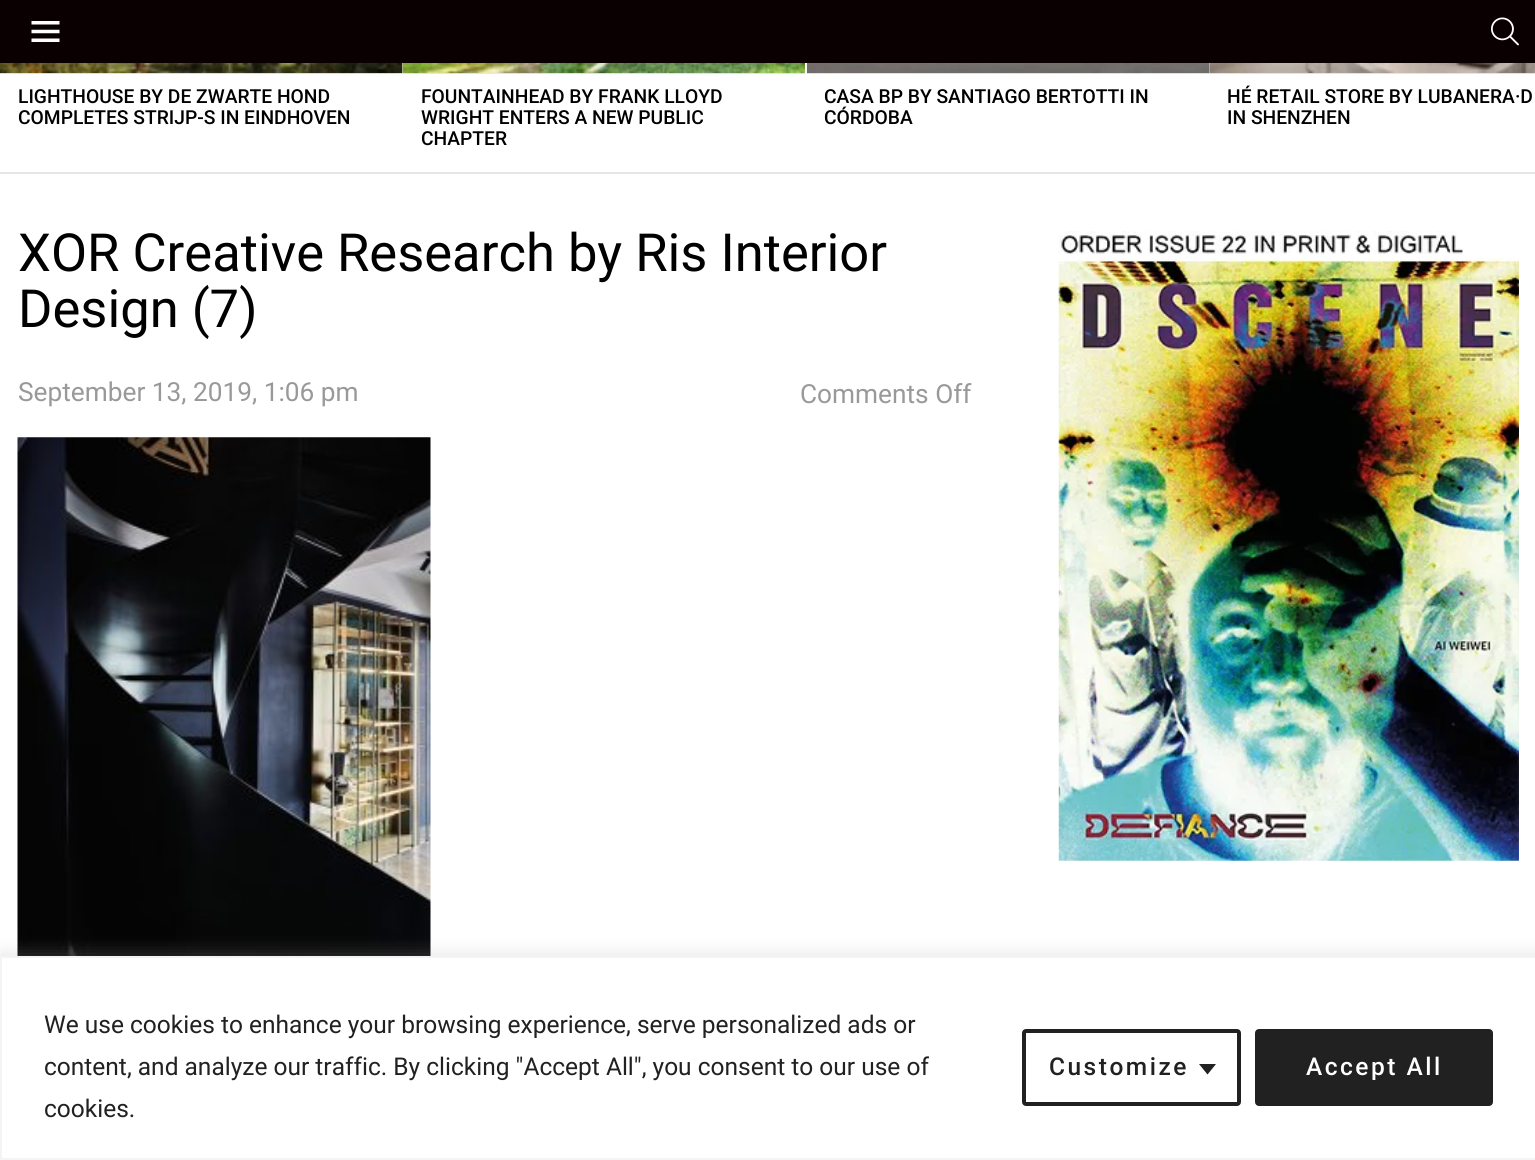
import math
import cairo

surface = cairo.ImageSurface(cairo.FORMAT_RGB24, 1535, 1160)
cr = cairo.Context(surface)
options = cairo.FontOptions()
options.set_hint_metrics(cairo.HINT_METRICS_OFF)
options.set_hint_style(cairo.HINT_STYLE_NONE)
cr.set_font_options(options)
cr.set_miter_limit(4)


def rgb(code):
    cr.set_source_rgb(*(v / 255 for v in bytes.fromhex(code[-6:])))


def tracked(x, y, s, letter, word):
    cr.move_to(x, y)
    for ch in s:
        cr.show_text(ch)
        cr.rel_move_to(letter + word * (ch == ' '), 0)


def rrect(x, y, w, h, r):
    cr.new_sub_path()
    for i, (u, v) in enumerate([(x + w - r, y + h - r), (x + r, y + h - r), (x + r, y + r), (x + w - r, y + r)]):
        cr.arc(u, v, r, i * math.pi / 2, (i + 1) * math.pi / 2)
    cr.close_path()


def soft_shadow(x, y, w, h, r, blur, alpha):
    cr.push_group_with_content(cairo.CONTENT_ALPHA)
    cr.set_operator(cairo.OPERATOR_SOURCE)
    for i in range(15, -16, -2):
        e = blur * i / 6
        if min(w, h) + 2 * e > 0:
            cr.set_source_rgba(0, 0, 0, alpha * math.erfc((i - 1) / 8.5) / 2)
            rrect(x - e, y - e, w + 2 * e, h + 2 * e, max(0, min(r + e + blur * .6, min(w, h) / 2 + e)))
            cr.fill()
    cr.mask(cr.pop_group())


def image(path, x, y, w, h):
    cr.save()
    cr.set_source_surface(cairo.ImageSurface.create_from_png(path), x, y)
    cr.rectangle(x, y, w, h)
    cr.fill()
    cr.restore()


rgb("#ffffff")
cr.paint()
rgb("#0a0002")
cr.rectangle(0, 0, 1535, 63)
cr.fill()
image("img/1.png", 31, 21, 29, 21)
image("img/2.png", 1491, 17, 28, 29)
rgb("#e6e6e6")
cr.rectangle(0, 172, 1535, 2)
cr.fill()
cr.rectangle(0, 63, 403, 11)
cr.fill()
image("img/3.png", 0, 63, 403, 11)
cr.rectangle(403, 73, 402, 1)
cr.fill()
image("img/4.png", 402, 63, 403, 11)
cr.rectangle(807, 73, 402, 1)
cr.fill()
cr.rectangle(1209, 63, 326, 11)
cr.fill()
image("img/5.png", 806, 63, 404, 11)
image("img/6.png", 1209, 63, 326, 11)
image("img/7.png", 17, 437, 414, 519)
image("img/8.png", 1058, 231, 461, 630)
rgb("#acabab")
soft_shadow(0, 954, 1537, 205, 0, 9, 0.3)
rgb("#ffffff")
cr.rectangle(1, 957, 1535, 202)
cr.fill_preserve()
rgb("#f4f4f4")
cr.stroke()
rrect(1024, 1031, 215, 73, 2)
rgb("#212121")
cr.set_line_width(4)
cr.stroke()
cr.new_path()
cr.move_to(1199, 1064)
cr.line_to(1216, 1064)
cr.line_to(1207.5, 1074.5)
cr.close_path()
cr.fill()
rrect(1257, 1031, 234, 73, 2)
cr.fill_preserve()
cr.stroke()
cr.select_font_face("Roboto Medium")
cr.set_font_size(19.25)
rgb("#000000")
for x, y, s in [
    (18, 103, "LIGHTHOUSE BY DE ZWARTE HOND"),
    (18, 124, "COMPLETES STRIJP-S IN EINDHOVEN"),
    (421, 103, "FOUNTAINHEAD BY FRANK LLOYD"),
    (421, 124, "WRIGHT ENTERS A NEW PUBLIC"),
    (421, 145, "CHAPTER"),
    (824, 103, "CASA BP BY SANTIAGO BERTOTTI IN"),
    (824, 124, "CÓRDOBA"),
    (1227, 103, "HÉ RETAIL STORE BY LUBANERA·D"),
    (1227, 124, "IN SHENZHEN"),
]:
    cr.move_to(x, y)
    cr.show_text(s)
cr.select_font_face("Roboto")
cr.set_font_size(52.5)
cr.move_to(18, 271)
cr.show_text("XOR Creative Research by Ris Interior")
cr.move_to(18, 327)
cr.show_text("Design (7)")
cr.set_font_size(26.25)
rgb("#999999")
cr.move_to(18, 401)
cr.show_text("September 13, 2019, 1:06 pm")
cr.move_to(800, 403)
cr.show_text("Comments Off")
cr.set_font_size(24.5)
rgb("#212121")
for x, y, s in [
    (44, 1033, "We use cookies to enhance your browsing experience, serve personalized ads or"),
    (44, 1075, "content, and analyze our traffic. By clicking \"Accept All\", you consent to our use of"),
    (44, 1117, "cookies."),
]:
    cr.move_to(x, y)
    cr.show_text(s)
cr.select_font_face("Roboto Medium")
tracked(1049, 1075, "Customize", 2.5, 0)
rgb("#ffffff")
tracked(1306, 1075, "Accept All", 2.5, 0)
surface.write_to_png("page.png")
